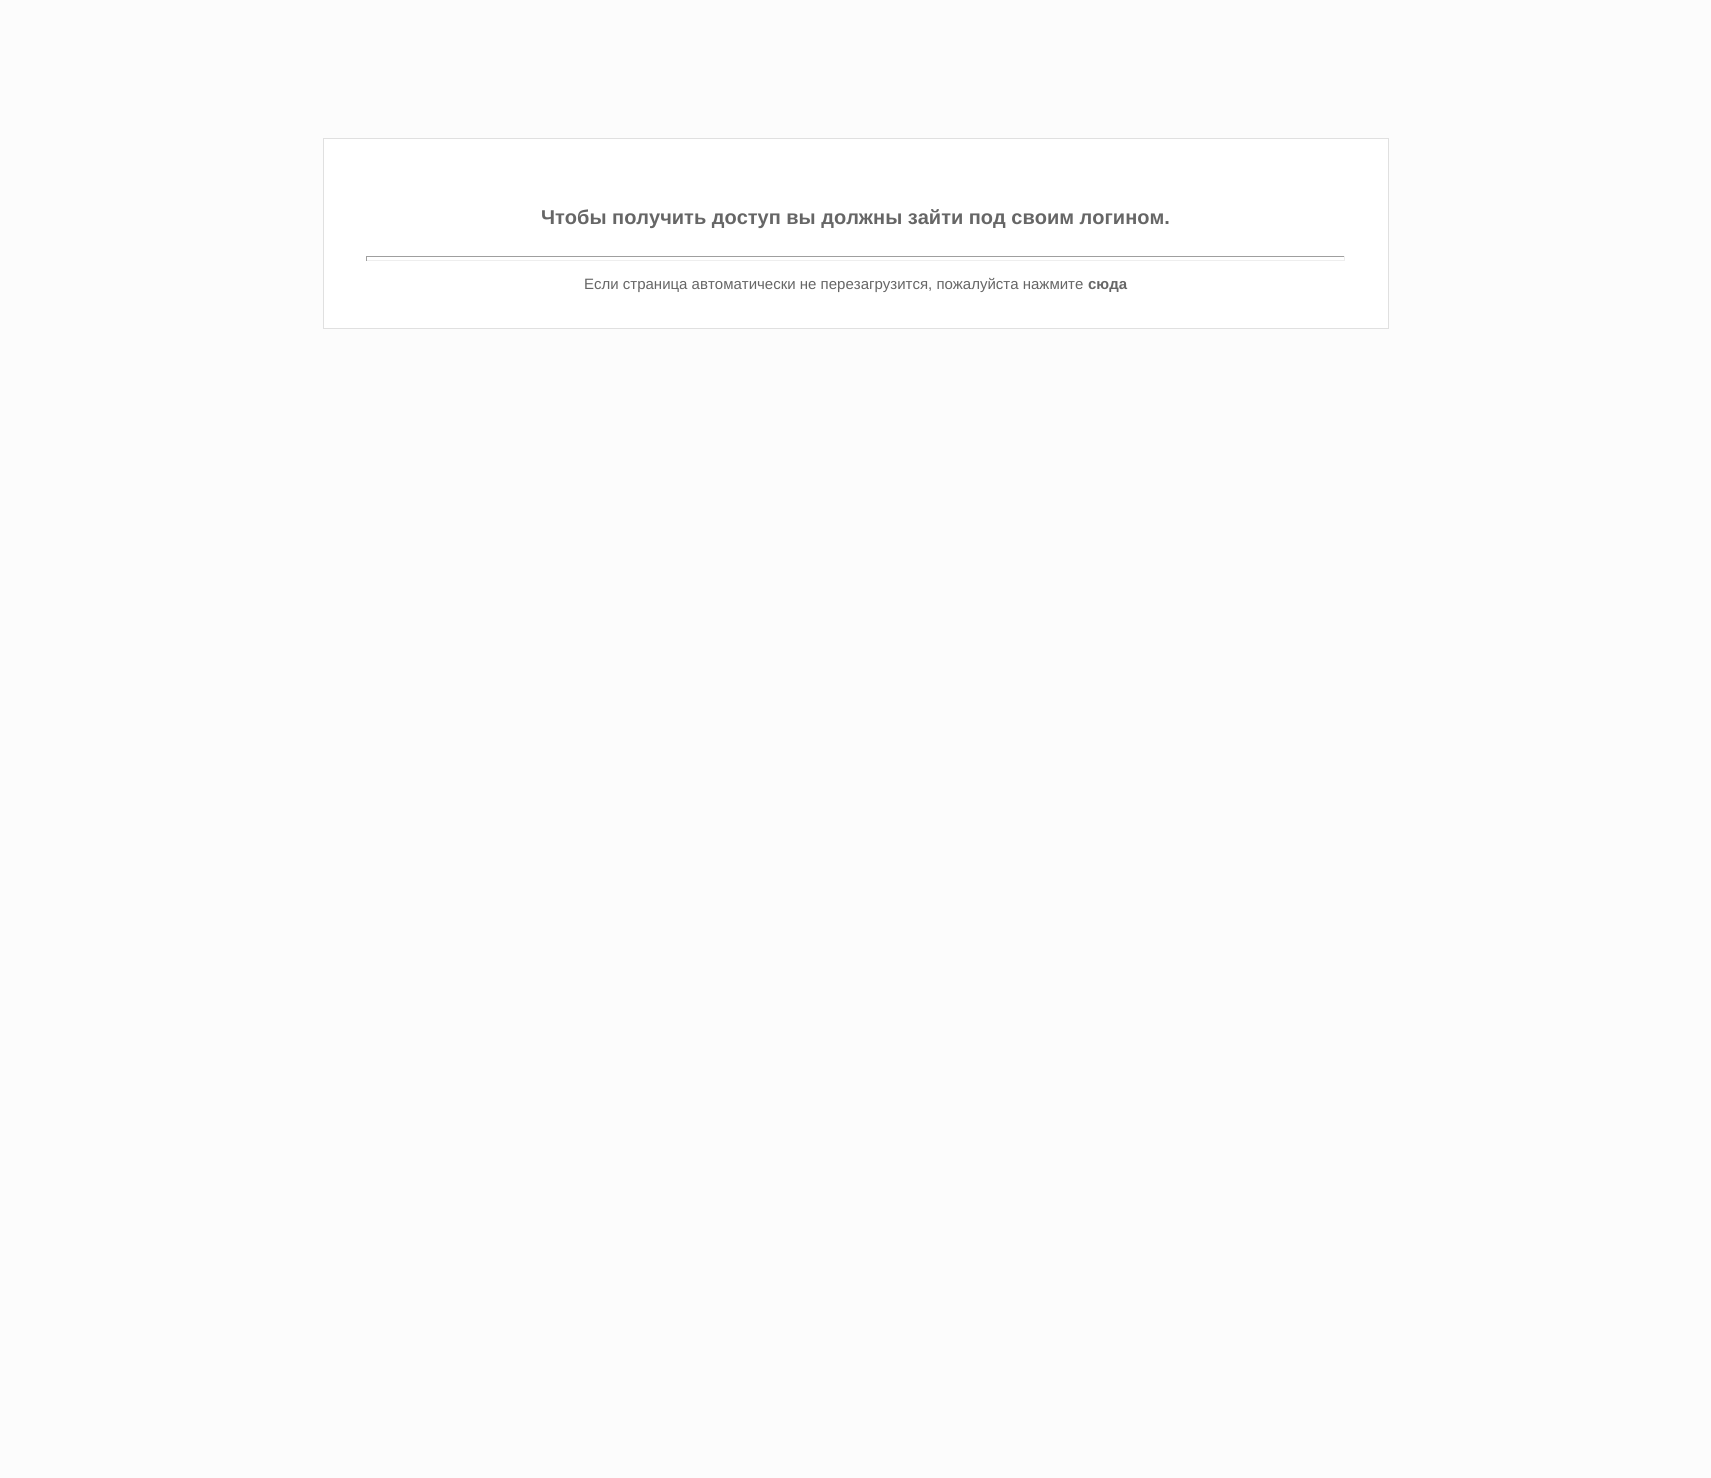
import math
import cairo

surface = cairo.ImageSurface(cairo.FORMAT_RGB24, 1711, 1478)
cr = cairo.Context(surface)
options = cairo.FontOptions()
options.set_hint_metrics(cairo.HINT_METRICS_OFF)
options.set_hint_style(cairo.HINT_STYLE_NONE)
cr.set_font_options(options)
cr.set_miter_limit(4)


def rgb(code):
    cr.set_source_rgb(*(v / 255 for v in bytes.fromhex(code[-6:])))


rgb("#fcfcfc")
cr.paint()
rgb("#ffffff")
cr.rectangle(323.5, 138.5, 1065, 190)
cr.fill_preserve()
rgb("#e0e0e0")
cr.set_line_width(1)
cr.stroke()
for x, y, w, h, color in [
    (366, 256, 979, 1, "#9f9f9f"),
    (1344, 256, 1, 5, "#eeeeee"),
    (366, 260, 979, 1, "#eeeeee"),
    (366, 256, 1, 5, "#9f9f9f"),
]:
    rgb(color)
    cr.rectangle(x, y, w, h)
    cr.fill()
cr.select_font_face("Liberation Sans", cairo.FONT_SLANT_NORMAL, cairo.FONT_WEIGHT_BOLD)
cr.set_font_size(20)
rgb("#666666")
cr.move_to(541, 224)
cr.show_text("Чтобы получить доступ вы должны зайти под своим логином.")
cr.select_font_face("Liberation Sans")
cr.set_font_size(15)
cr.move_to(584, 289)
cr.show_text("Если страница автоматически не перезагрузится, пожалуйста нажмите")
cr.select_font_face("Liberation Sans", cairo.FONT_SLANT_NORMAL, cairo.FONT_WEIGHT_BOLD)
cr.move_to(1088, 289)
cr.show_text("сюда")
surface.write_to_png("page.png")
